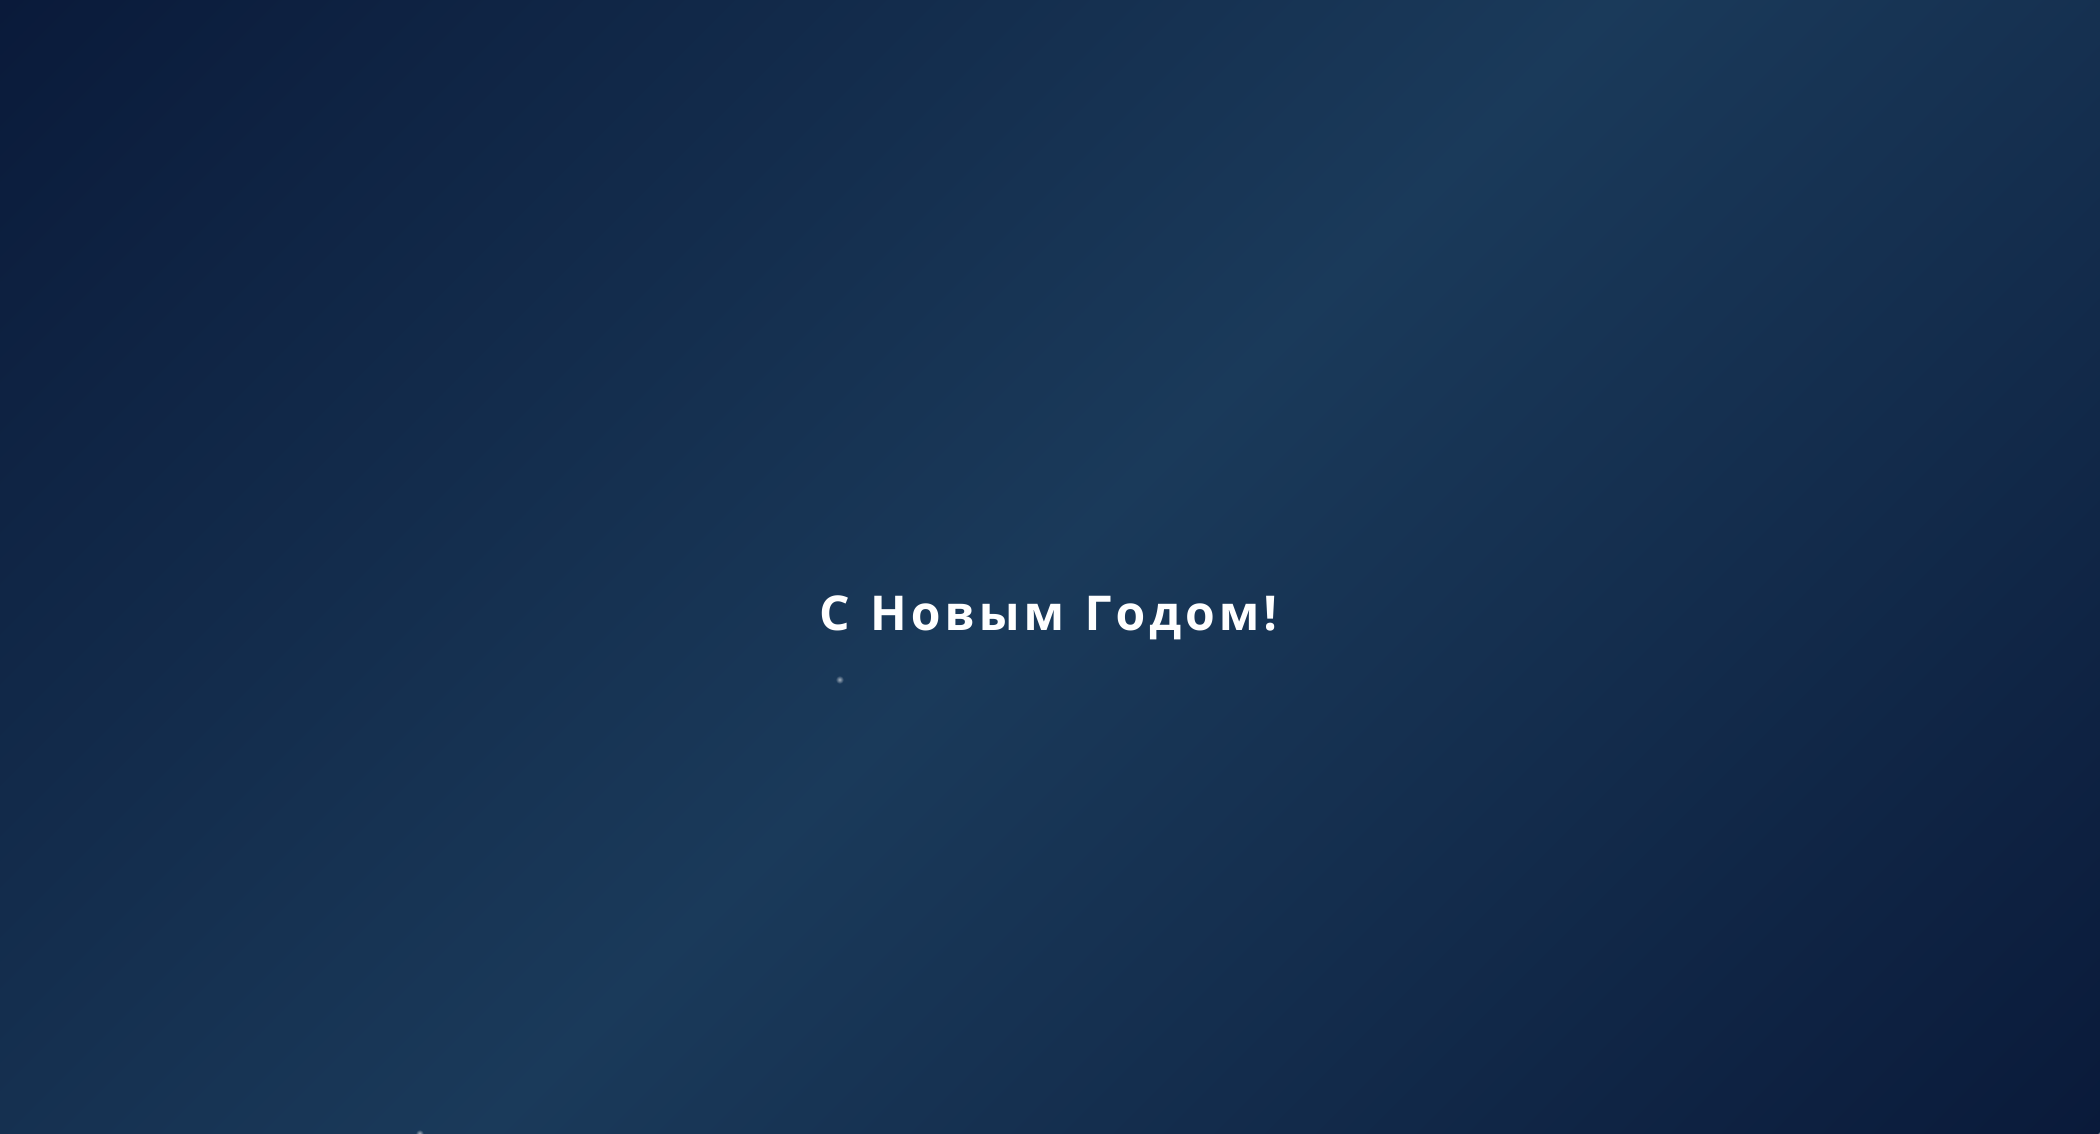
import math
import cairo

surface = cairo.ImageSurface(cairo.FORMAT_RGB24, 2100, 1134)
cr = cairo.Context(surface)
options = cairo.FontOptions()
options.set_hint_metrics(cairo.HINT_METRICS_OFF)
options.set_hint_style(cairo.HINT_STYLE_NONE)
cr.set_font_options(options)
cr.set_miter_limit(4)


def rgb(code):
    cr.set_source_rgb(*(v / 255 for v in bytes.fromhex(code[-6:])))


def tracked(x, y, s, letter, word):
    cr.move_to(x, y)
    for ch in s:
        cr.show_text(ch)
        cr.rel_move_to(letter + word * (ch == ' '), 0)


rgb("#ffffff")
cr.paint()
gradient = cairo.LinearGradient(241, -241, 1859, 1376)
gradient.add_color_stop_rgba(0, 0.039, 0.102, 0.227, 1)
gradient.add_color_stop_rgba(0.5, 0.102, 0.227, 0.353, 1)
gradient.add_color_stop_rgba(1, 0.039, 0.102, 0.227, 1)
cr.set_source(gradient)
cr.rectangle(0, 0, 2100, 1134)
cr.fill()
gradient = cairo.RadialGradient(420, 1134, 0, 420, 1134, 4)
gradient.add_color_stop_rgba(0, 1, 1, 1, 0.6)
gradient.add_color_stop_rgba(1, 1, 1, 1, 0)
cr.set_source(gradient)
cr.rectangle(416, 1130, 8, 4)
cr.fill()
gradient = cairo.RadialGradient(2100, 1134, 0, 2100, 1134, 2)
gradient.add_color_stop_rgba(0, 1, 1, 1, 0.6)
gradient.add_color_stop_rgba(1, 1, 1, 1, 0)
cr.set_source(gradient)
cr.rectangle(2098, 1132, 2, 2)
cr.fill()
gradient = cairo.RadialGradient(840, 680, 0, 840, 680, 4)
gradient.add_color_stop_rgba(0, 1, 1, 1, 0.6)
gradient.add_color_stop_rgba(1, 1, 1, 1, 0)
cr.set_source(gradient)
cr.rectangle(836, 676, 8, 8)
cr.fill()
cr.select_font_face("Open Sans", cairo.FONT_SLANT_NORMAL, cairo.FONT_WEIGHT_BOLD)
cr.set_font_size(48)
rgb("#ffffff")
tracked(819, 630, "С Новым Годом!", 4, 0)
surface.write_to_png("page.png")
